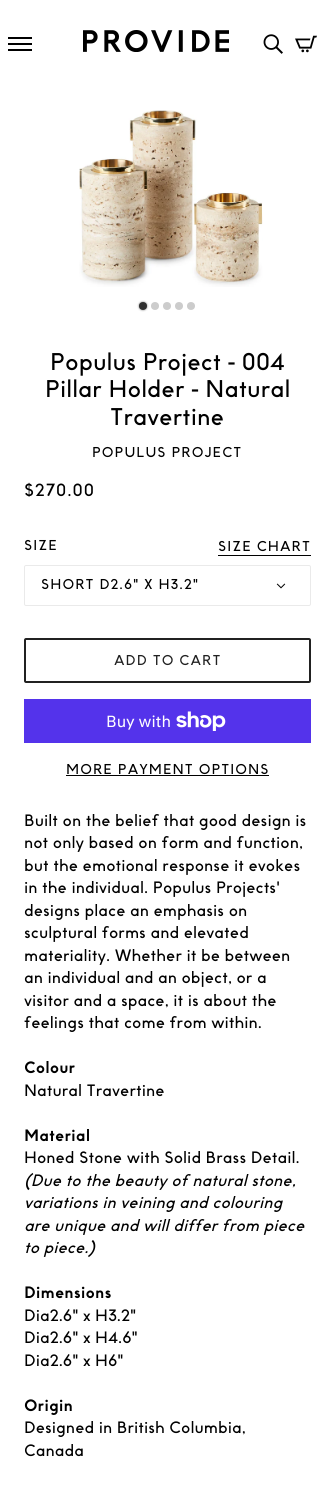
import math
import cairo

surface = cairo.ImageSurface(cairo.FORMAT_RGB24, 335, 1489)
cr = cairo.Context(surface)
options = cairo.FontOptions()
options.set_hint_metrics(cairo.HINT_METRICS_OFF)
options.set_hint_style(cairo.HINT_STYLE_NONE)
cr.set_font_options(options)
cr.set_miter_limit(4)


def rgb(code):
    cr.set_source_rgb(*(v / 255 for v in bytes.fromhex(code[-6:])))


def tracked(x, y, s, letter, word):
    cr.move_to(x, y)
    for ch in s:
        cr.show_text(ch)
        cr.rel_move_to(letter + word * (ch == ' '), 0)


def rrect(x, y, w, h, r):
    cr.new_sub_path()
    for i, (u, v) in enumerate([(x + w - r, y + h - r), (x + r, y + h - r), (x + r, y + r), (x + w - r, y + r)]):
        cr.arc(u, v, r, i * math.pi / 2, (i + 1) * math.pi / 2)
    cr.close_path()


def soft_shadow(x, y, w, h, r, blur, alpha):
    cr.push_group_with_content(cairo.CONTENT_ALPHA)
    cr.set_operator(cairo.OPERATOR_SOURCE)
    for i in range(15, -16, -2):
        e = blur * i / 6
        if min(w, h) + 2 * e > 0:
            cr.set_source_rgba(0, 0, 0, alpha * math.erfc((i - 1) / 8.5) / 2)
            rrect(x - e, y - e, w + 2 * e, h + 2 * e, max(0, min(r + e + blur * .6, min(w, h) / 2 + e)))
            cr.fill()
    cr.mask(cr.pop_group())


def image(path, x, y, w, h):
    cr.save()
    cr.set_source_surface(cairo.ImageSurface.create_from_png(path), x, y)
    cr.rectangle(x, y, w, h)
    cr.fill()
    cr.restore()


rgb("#ffffff")
cr.paint()
for x, y, w, h, color in [
    (8, 43, 24, 2, "#000000"),
    (8, 37, 24, 2, "#000000"),
    (8, 49, 24, 2, "#000000"),
]:
    rgb(color)
    cr.rectangle(x, y, w, h)
    cr.fill()
image("img/1.png", 83, 30, 146, 22)
image("img/2.png", 263, 34, 20, 20)
image("img/3.png", 295, 35, 22, 18)
image("img/4.png", 79, 110, 184, 177)
rgb("#303030")
soft_shadow(139, 302, 8, 8, 4, 1, 0.6)
rgb("#303030")
cr.arc(143, 306, 4, 0, 2 * math.pi)
cr.fill()
rgb("#cccccc")
cr.arc(155, 306, 4, 0, 2 * math.pi)
cr.fill()
cr.arc(167, 306, 4, 0, 2 * math.pi)
cr.fill()
cr.arc(179, 306, 4, 0, 2 * math.pi)
cr.fill()
cr.arc(191, 306, 4, 0, 2 * math.pi)
cr.fill()
rgb("#000000")
cr.rectangle(218, 555, 93, 1)
cr.fill()
rrect(24.5, 565.5, 286, 40, 1.5)
rgb("#eaeaea")
cr.set_line_width(1)
cr.stroke()
image("img/5.png", 276, 583, 10, 6)
rrect(25, 639, 285, 43, 1)
rgb("#212121")
cr.set_line_width(2)
cr.stroke()
rgb("#5433eb")
cr.rectangle(24, 699, 287, 44)
cr.fill()
image("img/6.png", 176, 711, 50, 20)
rgb("#000000")
cr.rectangle(66, 775, 203, 1)
cr.fill()
cr.select_font_face("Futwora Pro")
cr.set_font_size(22)
for x, y, s in [
    (50, 370, "Populus Project - 004"),
    (45, 397, "Pillar Holder - Natural"),
    (110, 425, "Travertine"),
]:
    cr.move_to(x, y)
    cr.show_text(s)
cr.set_font_size(13)
tracked(92, 457, "POPULUS PROJECT", 1, 0)
cr.set_font_size(16)
tracked(24, 496, "$270.00", 1, 0)
cr.set_font_size(13)
for x, y, s in [
    (24, 550, "SIZE"),
    (218, 551, "SIZE CHART"),
    (41, 589, "SHORT D2.6\" X H3.2\""),
]:
    tracked(x, y, s, 1, 0)
rgb("#212121")
tracked(114, 665, "ADD TO CART", 1, 0)
cr.select_font_face("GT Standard")
cr.set_font_size(16)
rgb("#ffffff")
cr.move_to(106, 727)
cr.show_text("Buy with")
cr.select_font_face("Futwora Pro")
cr.set_font_size(13)
rgb("#000000")
tracked(66, 774, "MORE PAYMENT OPTIONS", 1, 0)
cr.set_font_size(15)
for x, y, s in [
    (24, 826, "Built on the belief that good design is"),
    (24, 848, "not only based on form and function,"),
    (24, 871, "but the emotional response it evokes"),
    (24, 893, "in the individual. Populus Projects'"),
    (24, 916, "designs place an emphasis on"),
    (24, 938, "sculptural forms and elevated"),
    (24, 961, "materiality. Whether it be between"),
    (24, 983, "an individual and an object, or a"),
    (24, 1006, "visitor and a space, it is about the"),
    (24, 1028, "feelings that come from within."),
]:
    cr.move_to(x, y)
    cr.show_text(s)
cr.select_font_face("Futwora Pro", cairo.FONT_SLANT_NORMAL, cairo.FONT_WEIGHT_BOLD)
cr.move_to(24, 1073)
cr.show_text("Colour")
cr.select_font_face("Futwora Pro")
cr.move_to(24, 1096)
cr.show_text("Natural Travertine")
cr.select_font_face("Futwora Pro", cairo.FONT_SLANT_NORMAL, cairo.FONT_WEIGHT_BOLD)
cr.move_to(24, 1141)
cr.show_text("Material")
cr.select_font_face("Futwora Pro")
cr.move_to(24, 1163)
cr.show_text("Honed Stone with Solid Brass Detail.")
cr.select_font_face("Futwora Pro", cairo.FONT_SLANT_ITALIC)
for x, y, s in [
    (24, 1186, "(Due to the beauty of natural stone,"),
    (24, 1208, "variations in veining and colouring"),
    (24, 1231, "are unique and will differ from piece"),
    (24, 1253, "to piece.)"),
]:
    cr.move_to(x, y)
    cr.show_text(s)
cr.select_font_face("Futwora Pro", cairo.FONT_SLANT_NORMAL, cairo.FONT_WEIGHT_BOLD)
cr.move_to(24, 1298)
cr.show_text("Dimensions")
cr.select_font_face("Futwora Pro")
for x, y, s in [
    (24, 1321, "Dia2.6\" x H3.2\""),
    (24, 1343, "Dia2.6\" x H4.6\""),
    (24, 1366, "Dia2.6\" x H6\""),
]:
    cr.move_to(x, y)
    cr.show_text(s)
cr.select_font_face("Futwora Pro", cairo.FONT_SLANT_NORMAL, cairo.FONT_WEIGHT_BOLD)
cr.move_to(24, 1411)
cr.show_text("Origin")
cr.select_font_face("Futwora Pro")
cr.move_to(24, 1433)
cr.show_text("Designed in British Columbia,")
cr.move_to(24, 1456)
cr.show_text("Canada")
surface.write_to_png("page.png")
